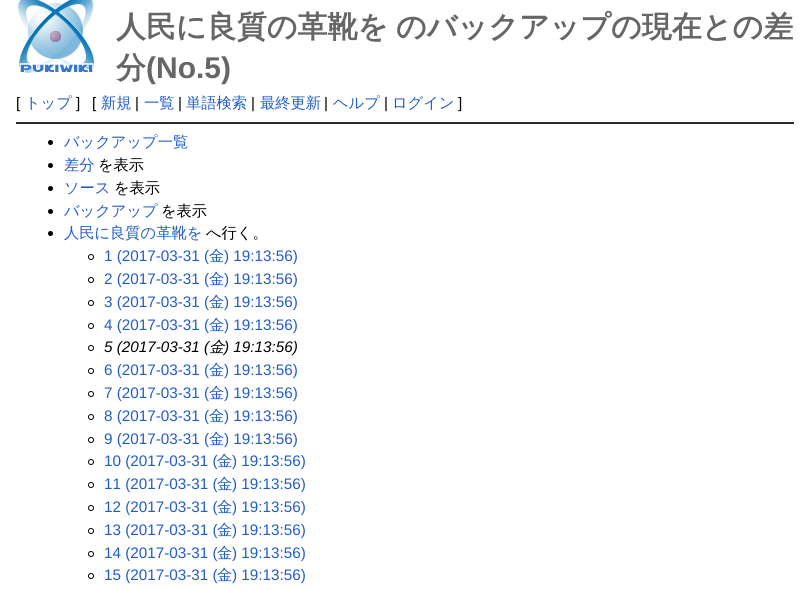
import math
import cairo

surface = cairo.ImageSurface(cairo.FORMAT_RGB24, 810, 590)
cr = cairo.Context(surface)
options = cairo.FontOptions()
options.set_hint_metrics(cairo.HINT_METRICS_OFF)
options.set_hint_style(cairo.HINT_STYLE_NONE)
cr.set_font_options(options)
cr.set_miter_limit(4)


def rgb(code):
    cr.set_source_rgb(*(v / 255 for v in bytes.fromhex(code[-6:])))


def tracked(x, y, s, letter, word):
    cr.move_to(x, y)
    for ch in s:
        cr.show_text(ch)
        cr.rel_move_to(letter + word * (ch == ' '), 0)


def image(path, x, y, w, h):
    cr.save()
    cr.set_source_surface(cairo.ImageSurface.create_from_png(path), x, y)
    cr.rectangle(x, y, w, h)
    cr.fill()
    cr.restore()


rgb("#ffffff")
cr.paint()
image("img/1.png", 18, 0, 76, 73)
rgb("#333333")
cr.rectangle(16, 122, 778, 1)
cr.fill()
rgb("#222222")
cr.rectangle(16, 123, 778, 1)
cr.fill()
rgb("#000000")
cr.arc(50.5, 142.5, 2.5, 0, 2 * math.pi)
cr.fill()
cr.arc(50.5, 165.5, 2.5, 0, 2 * math.pi)
cr.fill()
cr.arc(50.5, 188.5, 2.5, 0, 2 * math.pi)
cr.fill()
cr.arc(50.5, 211.5, 2.5, 0, 2 * math.pi)
cr.fill()
cr.arc(50.5, 233.5, 2.5, 0, 2 * math.pi)
cr.fill()
cr.arc(91, 257, 2.5, 0, 2 * math.pi)
cr.set_line_width(1)
cr.stroke()
cr.arc(91, 280, 2.5, 0, 2 * math.pi)
cr.stroke()
cr.arc(91, 303, 2.5, 0, 2 * math.pi)
cr.stroke()
cr.arc(91, 326, 2.5, 0, 2 * math.pi)
cr.stroke()
cr.arc(91, 348, 2.5, 0, 2 * math.pi)
cr.stroke()
cr.arc(91, 371, 2.5, 0, 2 * math.pi)
cr.stroke()
cr.arc(91, 394, 2.5, 0, 2 * math.pi)
cr.stroke()
cr.arc(91, 417, 2.5, 0, 2 * math.pi)
cr.stroke()
cr.arc(91, 440, 2.5, 0, 2 * math.pi)
cr.stroke()
cr.arc(91, 462, 2.5, 0, 2 * math.pi)
cr.stroke()
cr.arc(91, 485, 2.5, 0, 2 * math.pi)
cr.stroke()
cr.arc(91, 508, 2.5, 0, 2 * math.pi)
cr.stroke()
cr.arc(91, 531, 2.5, 0, 2 * math.pi)
cr.stroke()
cr.arc(91, 554, 2.5, 0, 2 * math.pi)
cr.stroke()
cr.arc(91, 576, 2.5, 0, 2 * math.pi)
cr.stroke()
cr.select_font_face("WenQuanYi Zen Hei", cairo.FONT_SLANT_NORMAL, cairo.FONT_WEIGHT_BOLD)
cr.set_font_size(30)
rgb("#666666")
tracked(116, 37, "人民に良質の革靴を のバックアップの現在との差", 0, -1)
cr.move_to(116, 78)
cr.show_text("分")
cr.select_font_face("Liberation Sans", cairo.FONT_SLANT_NORMAL, cairo.FONT_WEIGHT_BOLD)
cr.move_to(146, 78)
cr.show_text("(No.5)")
cr.select_font_face("Liberation Sans")
cr.set_font_size(15.25)
rgb("#000000")
cr.move_to(16, 108)
cr.show_text("[")
cr.select_font_face("WenQuanYi Zen Hei Medium")
rgb("#215dc6")
cr.move_to(25, 108)
cr.show_text("トップ")
cr.select_font_face("Liberation Sans")
rgb("#000000")
cr.move_to(76, 108)
cr.show_text("]")
cr.move_to(92, 108)
cr.show_text("[")
cr.select_font_face("WenQuanYi Zen Hei Medium")
rgb("#215dc6")
cr.move_to(101, 108)
cr.show_text("新規")
cr.select_font_face("Liberation Sans")
rgb("#000000")
cr.move_to(135, 108)
cr.show_text("|")
cr.select_font_face("WenQuanYi Zen Hei Medium")
rgb("#215dc6")
cr.move_to(144, 108)
cr.show_text("一覧")
cr.select_font_face("Liberation Sans")
rgb("#000000")
cr.move_to(178, 108)
cr.show_text("|")
cr.select_font_face("WenQuanYi Zen Hei Medium")
rgb("#215dc6")
cr.move_to(186, 108)
cr.show_text("単語検索")
cr.select_font_face("Liberation Sans")
rgb("#000000")
cr.move_to(251, 108)
cr.show_text("|")
cr.select_font_face("WenQuanYi Zen Hei Medium")
rgb("#215dc6")
cr.move_to(260, 108)
cr.show_text("最終更新")
cr.select_font_face("Liberation Sans")
rgb("#000000")
cr.move_to(324, 108)
cr.show_text("|")
cr.select_font_face("WenQuanYi Zen Hei Medium")
rgb("#215dc6")
cr.move_to(333, 108)
cr.show_text("ヘルプ")
cr.select_font_face("Liberation Sans")
rgb("#000000")
cr.move_to(384, 108)
cr.show_text("|")
cr.select_font_face("WenQuanYi Zen Hei Medium")
rgb("#215dc6")
cr.move_to(392, 108)
cr.show_text("ログイン")
cr.select_font_face("Liberation Sans")
rgb("#000000")
cr.move_to(458, 108)
cr.show_text("]")
cr.select_font_face("WenQuanYi Zen Hei Medium")
rgb("#215dc6")
cr.move_to(64, 147)
cr.show_text("バックアップ一覧")
cr.move_to(64, 170)
cr.show_text("差分")
rgb("#000000")
cr.move_to(98, 170)
cr.show_text("を表示")
rgb("#215dc6")
cr.move_to(64, 193)
cr.show_text("ソース")
rgb("#000000")
cr.move_to(114, 193)
cr.show_text("を表示")
rgb("#215dc6")
cr.move_to(64, 216)
cr.show_text("バックアップ")
rgb("#000000")
cr.move_to(161, 216)
cr.show_text("を表示")
rgb("#215dc6")
cr.move_to(64, 238)
cr.show_text("人民に良質の革靴を")
rgb("#000000")
cr.move_to(206, 238)
cr.show_text("へ行く。")
cr.select_font_face("Liberation Sans")
rgb("#215dc6")
cr.move_to(104, 261)
cr.show_text("1 (2017-03-31 (")
cr.select_font_face("WenQuanYi Zen Hei Medium")
cr.move_to(209, 261)
cr.show_text("金")
cr.select_font_face("Liberation Sans")
cr.move_to(224, 261)
cr.show_text(") 19:13:56)")
cr.move_to(104, 284)
cr.show_text("2 (2017-03-31 (")
cr.select_font_face("WenQuanYi Zen Hei Medium")
cr.move_to(209, 284)
cr.show_text("金")
cr.select_font_face("Liberation Sans")
cr.move_to(224, 284)
cr.show_text(") 19:13:56)")
cr.move_to(104, 307)
cr.show_text("3 (2017-03-31 (")
cr.select_font_face("WenQuanYi Zen Hei Medium")
cr.move_to(209, 307)
cr.show_text("金")
cr.select_font_face("Liberation Sans")
cr.move_to(224, 307)
cr.show_text(") 19:13:56)")
cr.move_to(104, 330)
cr.show_text("4 (2017-03-31 (")
cr.select_font_face("WenQuanYi Zen Hei Medium")
cr.move_to(209, 330)
cr.show_text("金")
cr.select_font_face("Liberation Sans")
cr.move_to(224, 330)
cr.show_text(") 19:13:56)")
cr.select_font_face("Liberation Sans", cairo.FONT_SLANT_ITALIC)
rgb("#000000")
cr.move_to(104, 352)
cr.show_text("5 (2017-03-31 (")
cr.select_font_face("WenQuanYi Zen Hei Medium", cairo.FONT_SLANT_ITALIC)
cr.move_to(209, 352)
cr.show_text("金")
cr.select_font_face("Liberation Sans", cairo.FONT_SLANT_ITALIC)
cr.move_to(224, 352)
cr.show_text(") 19:13:56)")
cr.select_font_face("Liberation Sans")
rgb("#215dc6")
cr.move_to(104, 375)
cr.show_text("6 (2017-03-31 (")
cr.select_font_face("WenQuanYi Zen Hei Medium")
cr.move_to(209, 375)
cr.show_text("金")
cr.select_font_face("Liberation Sans")
cr.move_to(224, 375)
cr.show_text(") 19:13:56)")
cr.move_to(104, 398)
cr.show_text("7 (2017-03-31 (")
cr.select_font_face("WenQuanYi Zen Hei Medium")
cr.move_to(209, 398)
cr.show_text("金")
cr.select_font_face("Liberation Sans")
cr.move_to(224, 398)
cr.show_text(") 19:13:56)")
cr.move_to(104, 421)
cr.show_text("8 (2017-03-31 (")
cr.select_font_face("WenQuanYi Zen Hei Medium")
cr.move_to(209, 421)
cr.show_text("金")
cr.select_font_face("Liberation Sans")
cr.move_to(224, 421)
cr.show_text(") 19:13:56)")
cr.move_to(104, 444)
cr.show_text("9 (2017-03-31 (")
cr.select_font_face("WenQuanYi Zen Hei Medium")
cr.move_to(209, 444)
cr.show_text("金")
cr.select_font_face("Liberation Sans")
cr.move_to(224, 444)
cr.show_text(") 19:13:56)")
cr.move_to(104, 466)
cr.show_text("10 (2017-03-31 (")
cr.select_font_face("WenQuanYi Zen Hei Medium")
cr.move_to(217, 466)
cr.show_text("金")
cr.select_font_face("Liberation Sans")
cr.move_to(232, 466)
cr.show_text(") 19:13:56)")
cr.move_to(104, 489)
cr.show_text("11 (2017-03-31 (")
cr.select_font_face("WenQuanYi Zen Hei Medium")
cr.move_to(217, 489)
cr.show_text("金")
cr.select_font_face("Liberation Sans")
cr.move_to(232, 489)
cr.show_text(") 19:13:56)")
cr.move_to(104, 512)
cr.show_text("12 (2017-03-31 (")
cr.select_font_face("WenQuanYi Zen Hei Medium")
cr.move_to(217, 512)
cr.show_text("金")
cr.select_font_face("Liberation Sans")
cr.move_to(232, 512)
cr.show_text(") 19:13:56)")
cr.move_to(104, 535)
cr.show_text("13 (2017-03-31 (")
cr.select_font_face("WenQuanYi Zen Hei Medium")
cr.move_to(217, 535)
cr.show_text("金")
cr.select_font_face("Liberation Sans")
cr.move_to(232, 535)
cr.show_text(") 19:13:56)")
cr.move_to(104, 558)
cr.show_text("14 (2017-03-31 (")
cr.select_font_face("WenQuanYi Zen Hei Medium")
cr.move_to(217, 558)
cr.show_text("金")
cr.select_font_face("Liberation Sans")
cr.move_to(232, 558)
cr.show_text(") 19:13:56)")
cr.move_to(104, 580)
cr.show_text("15 (2017-03-31 (")
cr.select_font_face("WenQuanYi Zen Hei Medium")
cr.move_to(217, 580)
cr.show_text("金")
cr.select_font_face("Liberation Sans")
cr.move_to(232, 580)
cr.show_text(") 19:13:56)")
surface.write_to_png("page.png")
